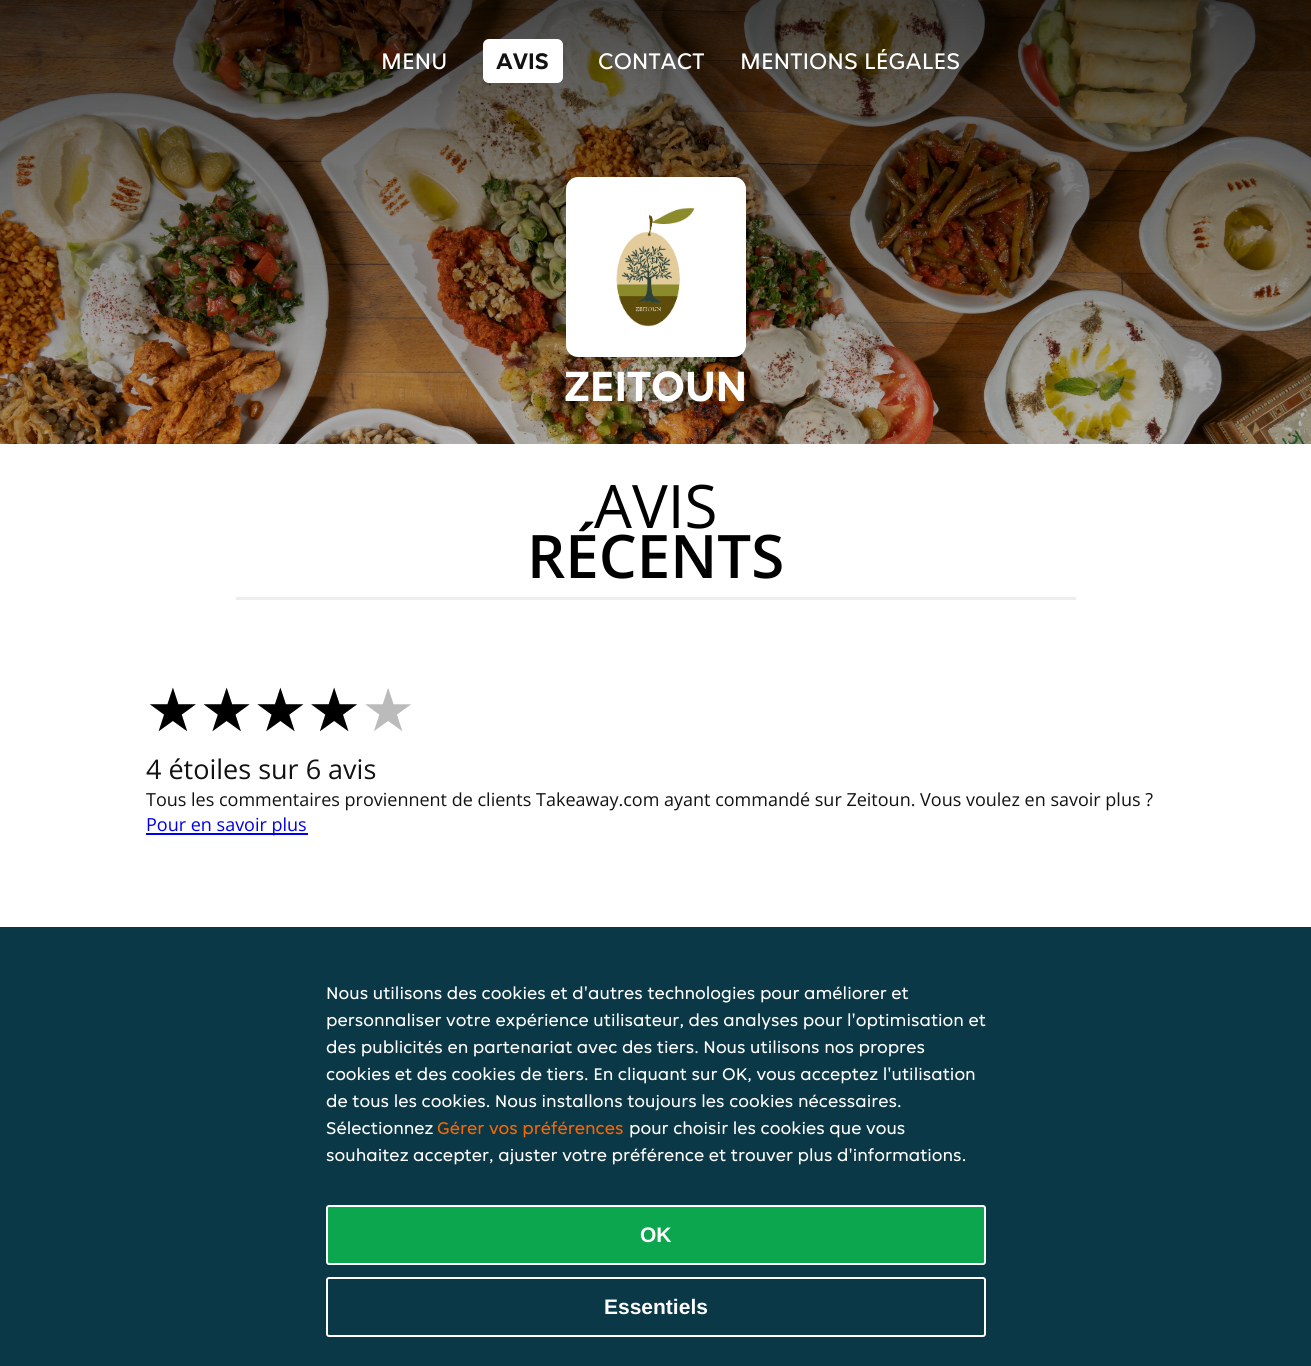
import math
import cairo

surface = cairo.ImageSurface(cairo.FORMAT_RGB24, 1311, 1366)
cr = cairo.Context(surface)
options = cairo.FontOptions()
options.set_hint_metrics(cairo.HINT_METRICS_OFF)
options.set_hint_style(cairo.HINT_STYLE_NONE)
cr.set_font_options(options)
cr.set_miter_limit(4)


def rgb(code):
    cr.set_source_rgb(*(v / 255 for v in bytes.fromhex(code[-6:])))


def rrect(x, y, w, h, r):
    cr.new_sub_path()
    for i, (u, v) in enumerate([(x + w - r, y + h - r), (x + r, y + h - r), (x + r, y + r), (x + w - r, y + r)]):
        cr.arc(u, v, r, i * math.pi / 2, (i + 1) * math.pi / 2)
    cr.close_path()


def image(path, x, y, w, h):
    cr.save()
    cr.set_source_surface(cairo.ImageSurface.create_from_png(path), x, y)
    cr.rectangle(x, y, w, h)
    cr.fill()
    cr.restore()


rgb("#ffffff")
cr.paint()
image("img/1.png", 0, 0, 1311, 444)
gradient = cairo.LinearGradient(655, 0, 656, 750)
gradient.add_color_stop_rgba(0, 0, 0, 0, 0.7)
gradient.add_color_stop_rgba(0.33, 0, 0, 0, 0.4)
gradient.add_color_stop_rgba(0.67, 0, 0, 0, 0.2)
gradient.add_color_stop_rgba(1, 0, 0, 0, 0)
cr.set_source(gradient)
cr.rectangle(0, 0, 1311, 444)
cr.fill()
rgb("#ffffff")
rrect(483, 39, 80, 44, 6)
cr.fill()
rrect(566, 177, 180, 180, 12)
cr.fill()
image("img/2.png", 616, 207, 79, 120)
for x, y, w, h, color in [
    (236, 597, 840, 3, "#eeeeee"),
    (146, 833, 162, 2, "#0000ee"),
    (0, 927, 1311, 439, "#0a3847"),
]:
    rgb(color)
    cr.rectangle(x, y, w, h)
    cr.fill()
rgb("#0ca64f")
rrect(327, 1206, 658, 58, 2)
cr.fill_preserve()
rgb("#ffffff")
cr.stroke()
rrect(327, 1278, 658, 58, 2)
cr.stroke()
cr.select_font_face("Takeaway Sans")
cr.set_font_size(24)
cr.move_to(381, 69)
cr.show_text("MENU")
cr.select_font_face("Takeaway Sans", cairo.FONT_SLANT_NORMAL, cairo.FONT_WEIGHT_BOLD)
rgb("#121212")
cr.move_to(496, 69)
cr.show_text("AVIS")
cr.select_font_face("Takeaway Sans")
rgb("#ffffff")
cr.move_to(598, 69)
cr.show_text("CONTACT")
cr.move_to(740, 69)
cr.show_text("MENTIONS LÉGALES")
cr.select_font_face("Takeaway Sans", cairo.FONT_SLANT_NORMAL, cairo.FONT_WEIGHT_BOLD)
cr.set_font_size(45)
cr.move_to(564, 401)
cr.show_text("ZEITOUN")
cr.select_font_face("Open Sans")
cr.set_font_size(60)
rgb("#000000")
cr.move_to(594, 528)
cr.show_text("AVIS")
cr.select_font_face("Open Sans SemiBold")
cr.move_to(527, 578)
cr.show_text("RÉCENTS")
cr.select_font_face("DejaVu Sans")
rgb("#bbbbbb")
cr.move_to(146, 731)
cr.show_text("★★★★★")
rgb("#000000")
cr.move_to(146, 731)
cr.show_text("★★★★")
cr.select_font_face("Open Sans")
cr.set_font_size(27)
rgb("#121212")
cr.move_to(146, 779)
cr.show_text("4 étoiles sur 6 avis")
cr.set_font_size(18)
cr.move_to(146, 806)
cr.show_text("Tous les commentaires proviennent de clients Takeaway.com ayant commandé sur Zeitoun. Vous voulez en savoir plus ?")
rgb("#0000ee")
cr.move_to(146, 831)
cr.show_text("Pour en savoir plus")
cr.select_font_face("Takeaway Sans")
rgb("#ffffff")
for x, y, s in [
    (326, 999, "Nous utilisons des cookies et d'autres technologies pour améliorer et"),
    (326, 1026, "personnaliser votre expérience utilisateur, des analyses pour l'optimisation et"),
    (326, 1053, "des publicités en partenariat avec des tiers. Nous utilisons nos propres"),
    (326, 1080, "cookies et des cookies de tiers. En cliquant sur OK, vous acceptez l'utilisation"),
    (326, 1107, "de tous les cookies. Nous installons toujours les cookies nécessaires."),
    (326, 1134, "Sélectionnez"),
]:
    cr.move_to(x, y)
    cr.show_text(s)
rgb("#f86600")
cr.move_to(437, 1134)
cr.show_text("Gérer vos préférences")
rgb("#ffffff")
cr.move_to(629, 1134)
cr.show_text("pour choisir les cookies que vous")
cr.move_to(326, 1161)
cr.show_text("souhaitez accepter, ajuster votre préférence et trouver plus d'informations.")
cr.select_font_face("Liberation Sans", cairo.FONT_SLANT_NORMAL, cairo.FONT_WEIGHT_BOLD)
cr.set_font_size(21)
cr.move_to(640, 1242)
cr.show_text("OK")
cr.move_to(604, 1314)
cr.show_text("Essentiels")
surface.write_to_png("page.png")
